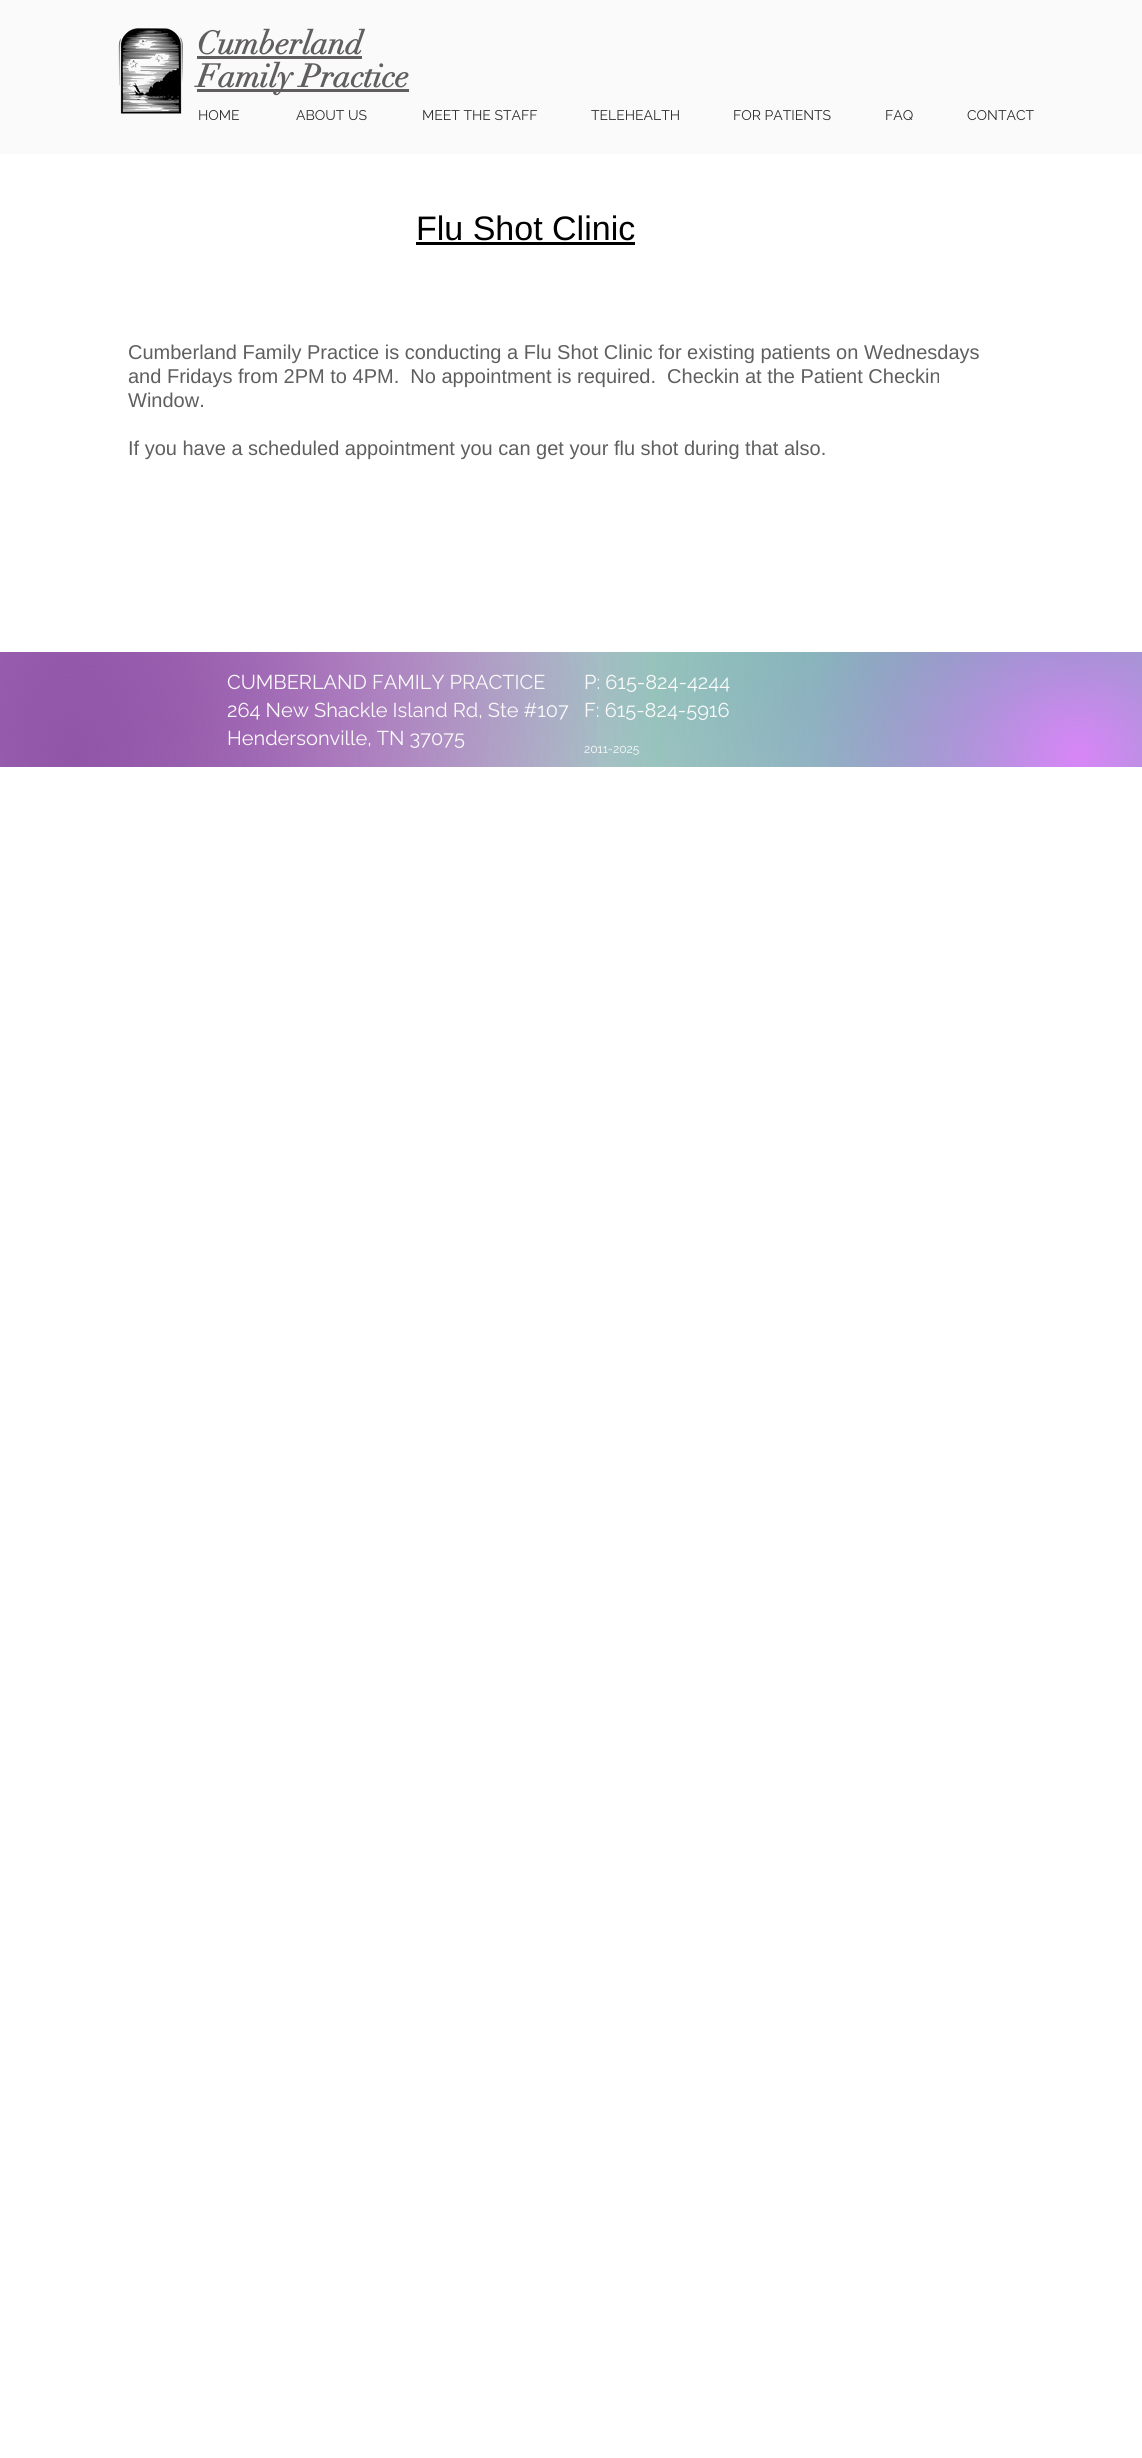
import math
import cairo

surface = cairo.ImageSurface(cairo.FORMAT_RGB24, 1142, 2458)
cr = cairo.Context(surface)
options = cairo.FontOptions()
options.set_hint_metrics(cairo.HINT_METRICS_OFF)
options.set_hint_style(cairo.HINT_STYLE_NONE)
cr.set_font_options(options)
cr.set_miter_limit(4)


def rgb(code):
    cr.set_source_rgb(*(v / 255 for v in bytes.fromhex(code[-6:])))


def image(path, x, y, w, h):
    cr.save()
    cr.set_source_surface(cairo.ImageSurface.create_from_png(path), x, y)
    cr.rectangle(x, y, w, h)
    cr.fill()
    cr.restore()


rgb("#ffffff")
cr.paint()
rgb("#fafafa")
cr.rectangle(0, 0, 1142, 154)
cr.fill()
image("img/1.png", 118, 28, 65, 86)
for x, y, w, h, color in [
    (197, 56, 165, 3, "#605e5e"),
    (197, 89, 212, 3, "#605e5e"),
    (416, 242, 219, 3, "#000000"),
]:
    rgb(color)
    cr.rectangle(x, y, w, h)
    cr.fill()
gradient = cairo.RadialGradient(1070, 665, 0, 1070, 665, 1075)
gradient.add_color_stop_rgba(0, 0.051, 0.698, 0.42, 1)
gradient.add_color_stop_rgba(0.7, 1, 1, 1, 1)
cr.set_source(gradient)
cr.rectangle(325, 652, 817, 115)
cr.fill()
gradient = cairo.RadialGradient(70, 667, 0, 70, 667, 1076)
gradient.add_color_stop_rgba(0, 0.635, 0.396, 0.725, 1)
gradient.add_color_stop_rgba(0.7, 0.635, 0.396, 0.725, 0)
cr.set_source(gradient)
cr.rectangle(0, 652, 806, 115)
cr.fill()
gradient = cairo.RadialGradient(74, 753, 0, 74, 753, 1073)
gradient.add_color_stop_rgba(0, 0.569, 0.333, 0.655, 0.99)
gradient.add_color_stop_rgba(0.5, 0.569, 0.333, 0.655, 0)
cr.set_source(gradient)
cr.rectangle(0, 652, 597, 115)
cr.fill()
gradient = cairo.RadialGradient(1078, 755, 0, 1078, 755, 1082)
gradient.add_color_stop_rgba(0, 0.847, 0.525, 0.969, 1)
gradient.add_color_stop_rgba(0.4, 0.847, 0.525, 0.969, 0)
cr.set_source(gradient)
cr.rectangle(661, 652, 481, 115)
cr.fill()
cr.select_font_face("didot", cairo.FONT_SLANT_NORMAL, cairo.FONT_WEIGHT_BOLD)
cr.set_font_size(32)
rgb("#605e5e")
cr.move_to(197, 54)
cr.show_text("Cumberland")
cr.move_to(197, 87)
cr.show_text("Family Practice")
cr.select_font_face("Raleway")
cr.set_font_size(14)
rgb("#2f2e2e")
for x, y, s in [
    (198, 120, "HOME"),
    (296, 120, "ABOUT US"),
    (422, 120, "MEET THE STAFF"),
    (591, 120, "TELEHEALTH"),
    (733, 120, "FOR PATIENTS"),
    (885, 120, "FAQ"),
    (967, 120, "CONTACT"),
]:
    cr.move_to(x, y)
    cr.show_text(s)
cr.select_font_face("Liberation Sans")
cr.set_font_size(34)
rgb("#000000")
cr.move_to(416, 240)
cr.show_text("Flu Shot Clinic")
cr.set_font_size(20)
rgb("#605e5e")
for x, y, s in [
    (128, 359, "Cumberland Family Practice is conducting a Flu Shot Clinic for existing patients on Wednesdays"),
    (128, 383, "and Fridays from 2PM to 4PM.  No appointment is required.  Checkin at the Patient Checkin"),
    (128, 407, "Window."),
    (128, 455, "If you have a scheduled appointment you can get your flu shot during that also."),
]:
    cr.move_to(x, y)
    cr.show_text(s)
cr.select_font_face("Raleway")
rgb("#fafafa")
for x, y, s in [
    (227, 689, "CUMBERLAND FAMILY PRACTICE"),
    (227, 717, "264 New Shackle Island Rd, Ste #107"),
    (227, 745, "Hendersonville, TN 37075"),
    (584, 689, "P: 615-824-4244"),
    (584, 717, "F: 615-824-5916"),
]:
    cr.move_to(x, y)
    cr.show_text(s)
cr.set_font_size(12)
cr.move_to(584, 753)
cr.show_text("2011-2025")
surface.write_to_png("page.png")
